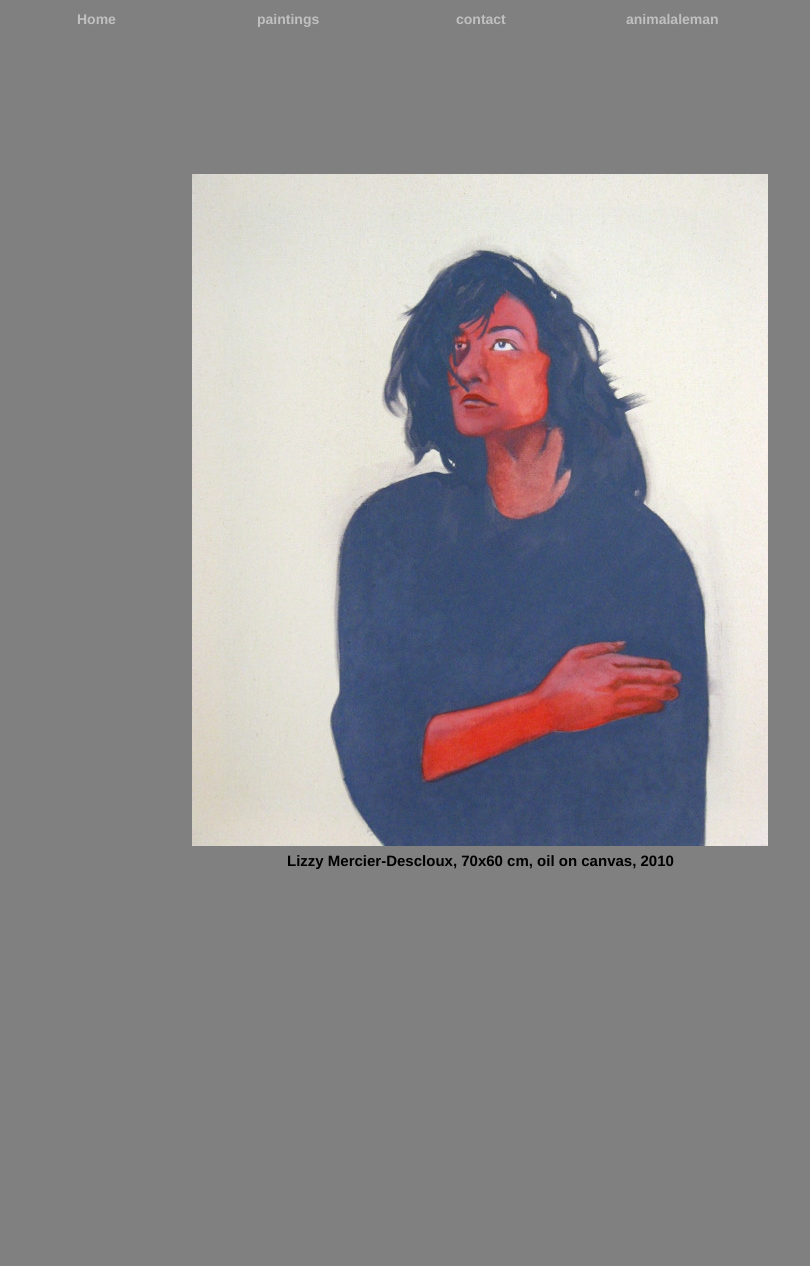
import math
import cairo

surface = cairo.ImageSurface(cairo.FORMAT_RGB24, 810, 1266)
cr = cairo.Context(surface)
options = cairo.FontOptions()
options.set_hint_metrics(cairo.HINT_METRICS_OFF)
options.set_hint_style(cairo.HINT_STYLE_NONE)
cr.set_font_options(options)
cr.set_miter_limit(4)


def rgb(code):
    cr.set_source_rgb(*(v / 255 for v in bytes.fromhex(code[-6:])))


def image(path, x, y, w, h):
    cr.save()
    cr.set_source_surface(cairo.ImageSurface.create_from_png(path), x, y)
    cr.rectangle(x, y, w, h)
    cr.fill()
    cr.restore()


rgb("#808080")
cr.paint()
image("img/1.png", 192, 174, 576, 672)
cr.select_font_face("Liberation Sans", cairo.FONT_SLANT_NORMAL, cairo.FONT_WEIGHT_BOLD)
cr.set_font_size(14)
rgb("#c0c0c0")
for x, y, s in [
    (77, 24, "Home"),
    (257, 24, "paintings"),
    (456, 24, "contact"),
    (626, 24, "animalaleman"),
]:
    cr.move_to(x, y)
    cr.show_text(s)
cr.set_font_size(15)
rgb("#000000")
cr.move_to(287, 866)
cr.show_text("Lizzy Mercier-Descloux, 70x60 cm, oil on canvas, 2010")
surface.write_to_png("page.png")
